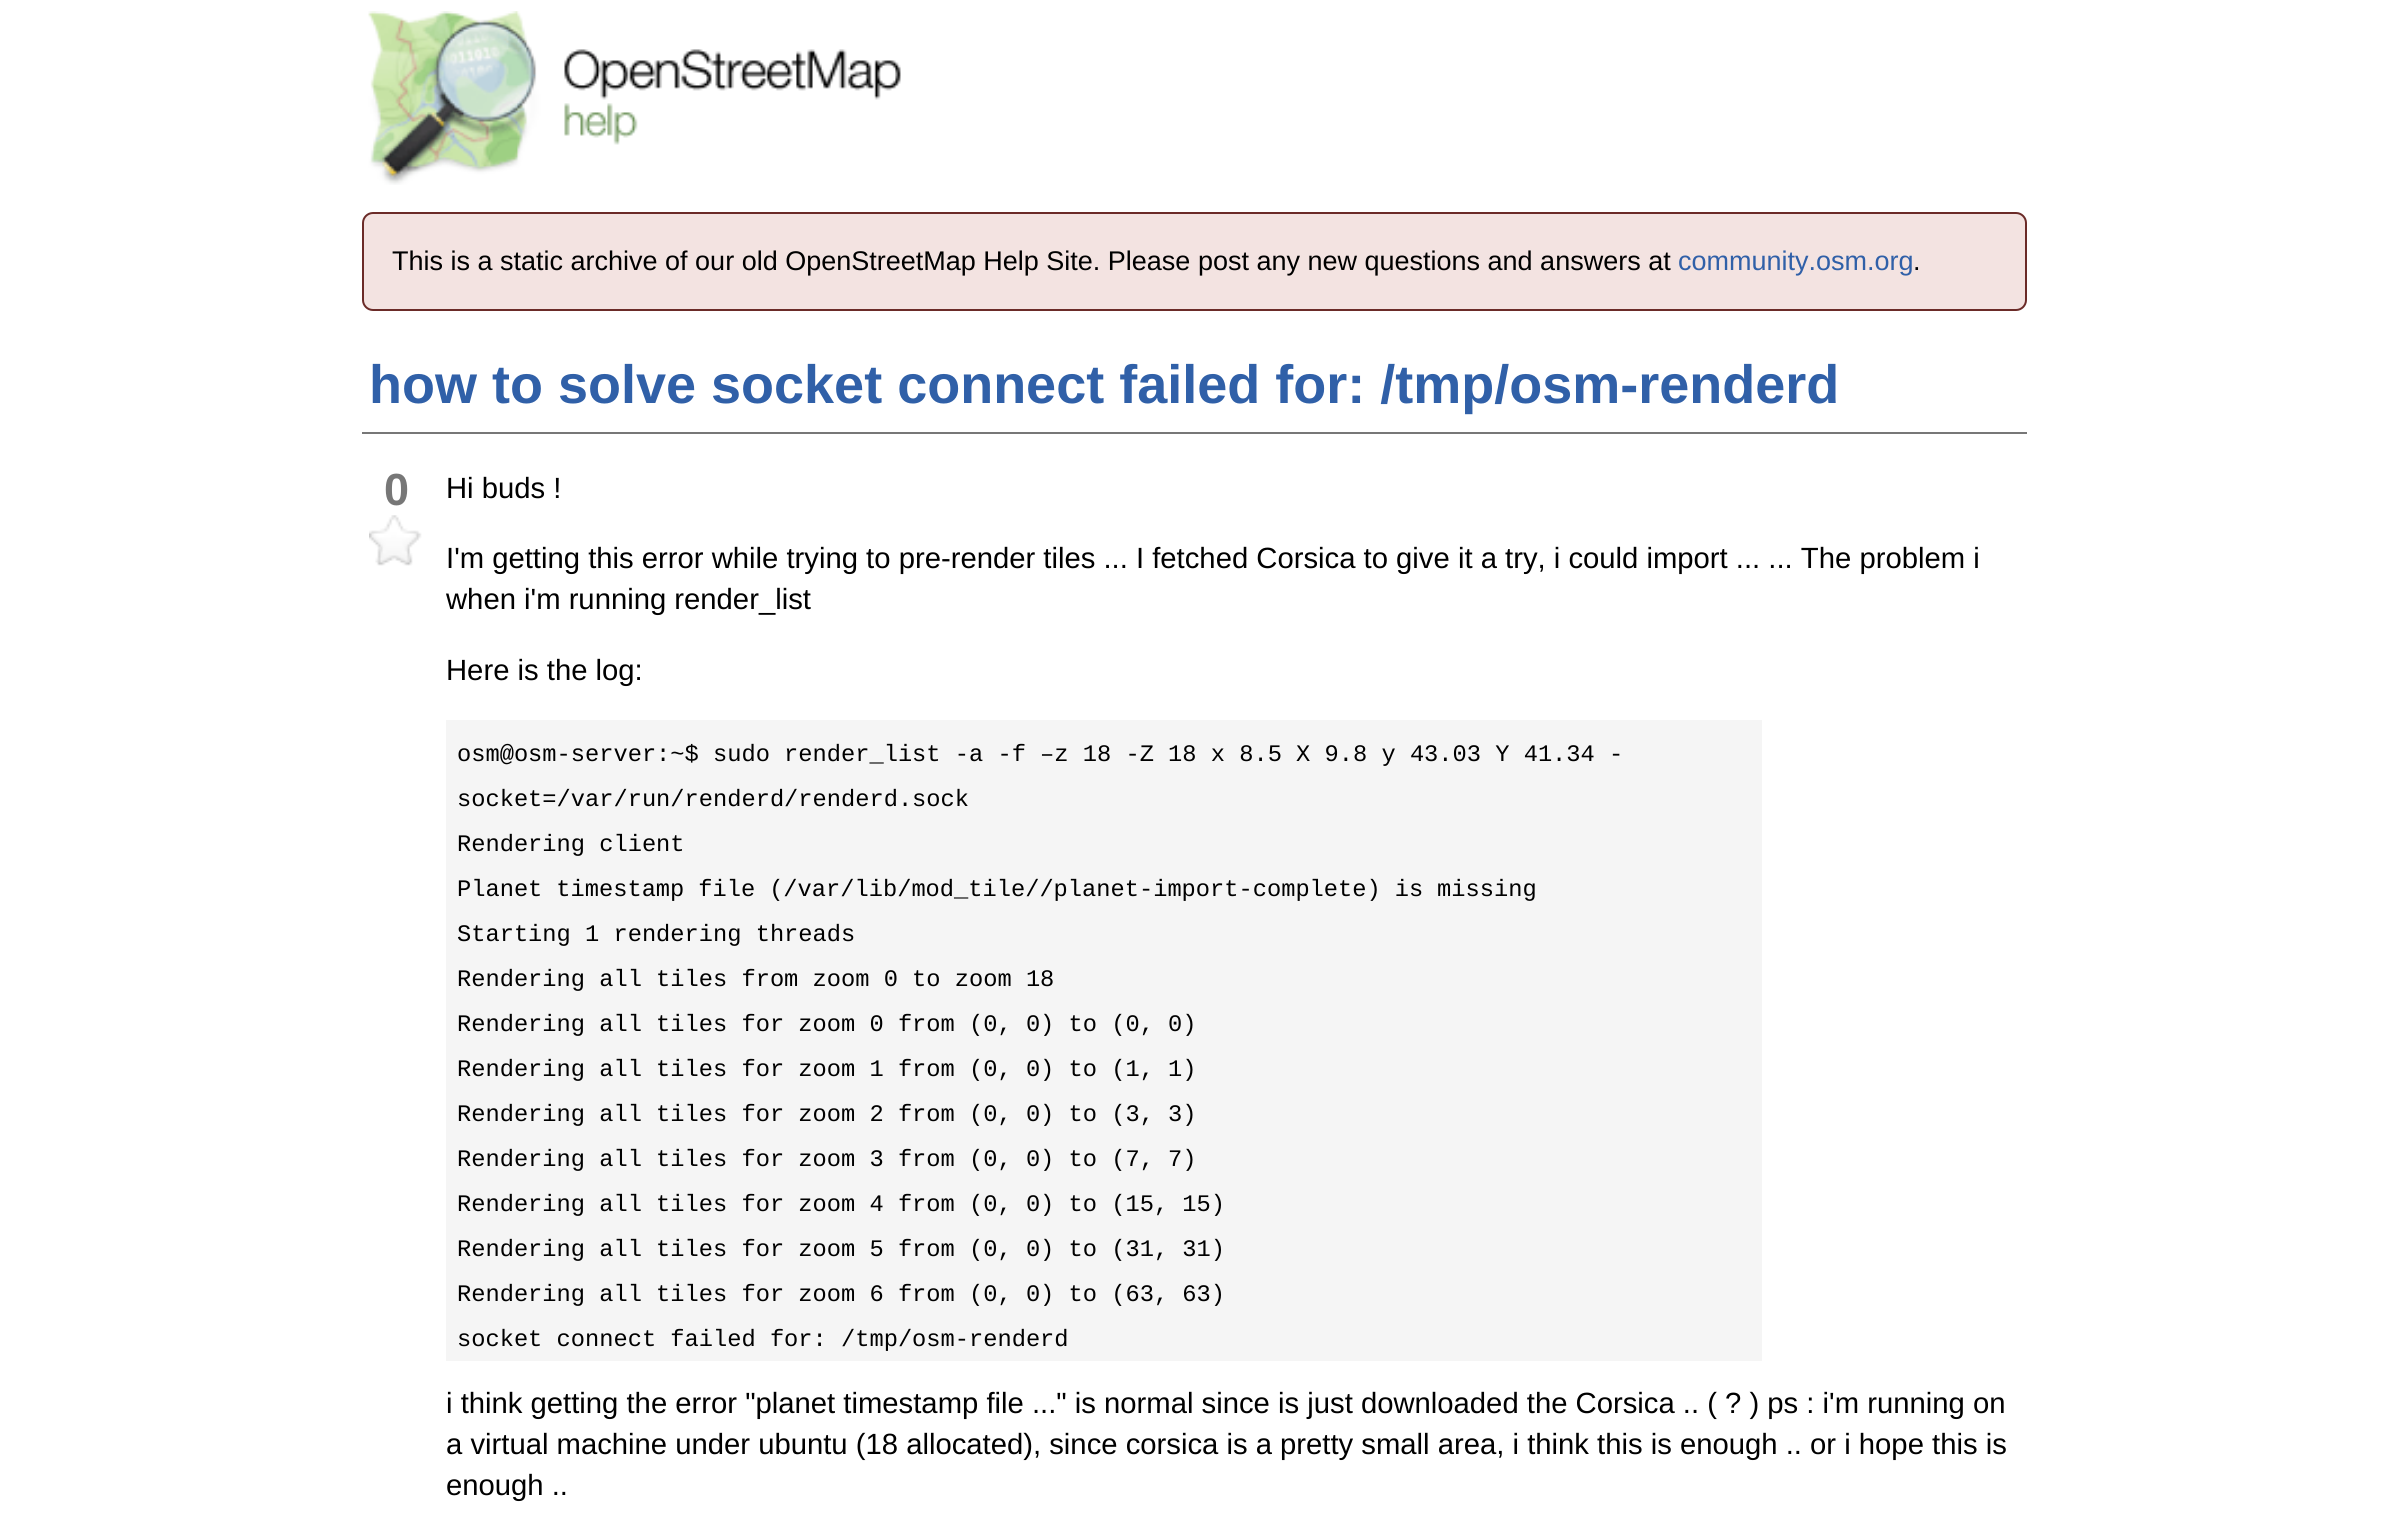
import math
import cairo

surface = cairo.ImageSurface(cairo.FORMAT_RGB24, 2388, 1533)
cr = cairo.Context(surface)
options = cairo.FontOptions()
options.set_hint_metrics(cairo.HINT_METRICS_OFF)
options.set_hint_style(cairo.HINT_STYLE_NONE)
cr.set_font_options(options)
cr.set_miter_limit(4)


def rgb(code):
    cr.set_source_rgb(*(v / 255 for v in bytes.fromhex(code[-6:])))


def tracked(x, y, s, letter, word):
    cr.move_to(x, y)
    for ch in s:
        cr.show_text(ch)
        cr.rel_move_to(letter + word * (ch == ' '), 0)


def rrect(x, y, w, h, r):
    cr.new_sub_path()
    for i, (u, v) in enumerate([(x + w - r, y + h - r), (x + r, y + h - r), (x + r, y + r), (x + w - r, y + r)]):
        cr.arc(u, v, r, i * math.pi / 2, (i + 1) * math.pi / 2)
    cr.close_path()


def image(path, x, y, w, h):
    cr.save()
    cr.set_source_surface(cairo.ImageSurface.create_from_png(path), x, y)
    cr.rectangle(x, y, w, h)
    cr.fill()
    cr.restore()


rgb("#ffffff")
cr.paint()
image("img/1.png", 368, 11, 533, 174)
rgb("#f3e3e1")
rrect(363, 213, 1663, 97, 10)
cr.fill_preserve()
rgb("#6b2b28")
cr.stroke()
rgb("#777777")
cr.rectangle(362, 432, 1665, 2)
cr.fill()
image("img/2.png", 369, 515, 53, 51)
rgb("#f5f5f5")
cr.rectangle(446, 720, 1316, 641)
cr.fill()
cr.select_font_face("Liberation Sans")
cr.set_font_size(27)
rgb("#000000")
cr.move_to(392, 270)
cr.show_text("This is a static archive of our old OpenStreetMap Help Site. Please post any new questions and answers at")
rgb("#3060a8")
cr.move_to(1678, 270)
cr.show_text("community.osm.org")
rgb("#000000")
cr.move_to(1913, 270)
cr.show_text(".")
cr.select_font_face("Liberation Sans", cairo.FONT_SLANT_NORMAL, cairo.FONT_WEIGHT_BOLD)
cr.set_font_size(54)
rgb("#3060a8")
cr.move_to(369, 403)
cr.show_text("how to solve socket connect failed for: /tmp/osm-renderd")
cr.set_font_size(45)
rgb("#777777")
cr.move_to(384, 505)
cr.show_text("0")
cr.select_font_face("Liberation Sans")
cr.set_font_size(29.25)
rgb("#000000")
for x, y, s in [
    (446, 498, "Hi buds !"),
    (446, 568, "I'm getting this error while trying to pre-render tiles ... I fetched Corsica to give it a try, i could import ... ... The problem i"),
    (446, 609, "when i'm running render_list"),
    (446, 680, "Here is the log:"),
]:
    cr.move_to(x, y)
    cr.show_text(s)
cr.select_font_face("Liberation Mono")
cr.set_font_size(23.7)
for x, y, s in [
    (457, 761, "osm@osm-server:~$ sudo render_list -a -f –z 18 -Z 18 x 8.5 X 9.8 y 43.03 Y 41.34 -"),
    (457, 806, "socket=/var/run/renderd/renderd.sock"),
    (457, 851, "Rendering client"),
]:
    cr.move_to(x, y)
    cr.show_text(s)
tracked(457, 896, "Planet timestamp file (/var/lib/mod_tile//planet-import-complete) is missing", 0, -0.25)
for x, y, s in [
    (457, 941, "Starting 1 rendering threads"),
    (457, 986, "Rendering all tiles from zoom 0 to zoom 18"),
    (457, 1031, "Rendering all tiles for zoom 0 from (0, 0) to (0, 0)"),
    (457, 1076, "Rendering all tiles for zoom 1 from (0, 0) to (1, 1)"),
    (457, 1121, "Rendering all tiles for zoom 2 from (0, 0) to (3, 3)"),
    (457, 1166, "Rendering all tiles for zoom 3 from (0, 0) to (7, 7)"),
    (457, 1211, "Rendering all tiles for zoom 4 from (0, 0) to (15, 15)"),
    (457, 1256, "Rendering all tiles for zoom 5 from (0, 0) to (31, 31)"),
    (457, 1301, "Rendering all tiles for zoom 6 from (0, 0) to (63, 63)"),
    (457, 1346, "socket connect failed for: /tmp/osm-renderd"),
]:
    cr.move_to(x, y)
    cr.show_text(s)
cr.select_font_face("Liberation Sans")
cr.set_font_size(29.25)
for x, y, s in [
    (446, 1413, "i think getting the error \"planet timestamp file ...\" is normal since is just downloaded the Corsica .. ( ? ) ps : i'm running on"),
    (446, 1454, "a virtual machine under ubuntu (18 allocated), since corsica is a pretty small area, i think this is enough .. or i hope this is"),
    (446, 1495, "enough .."),
]:
    cr.move_to(x, y)
    cr.show_text(s)
surface.write_to_png("page.png")
